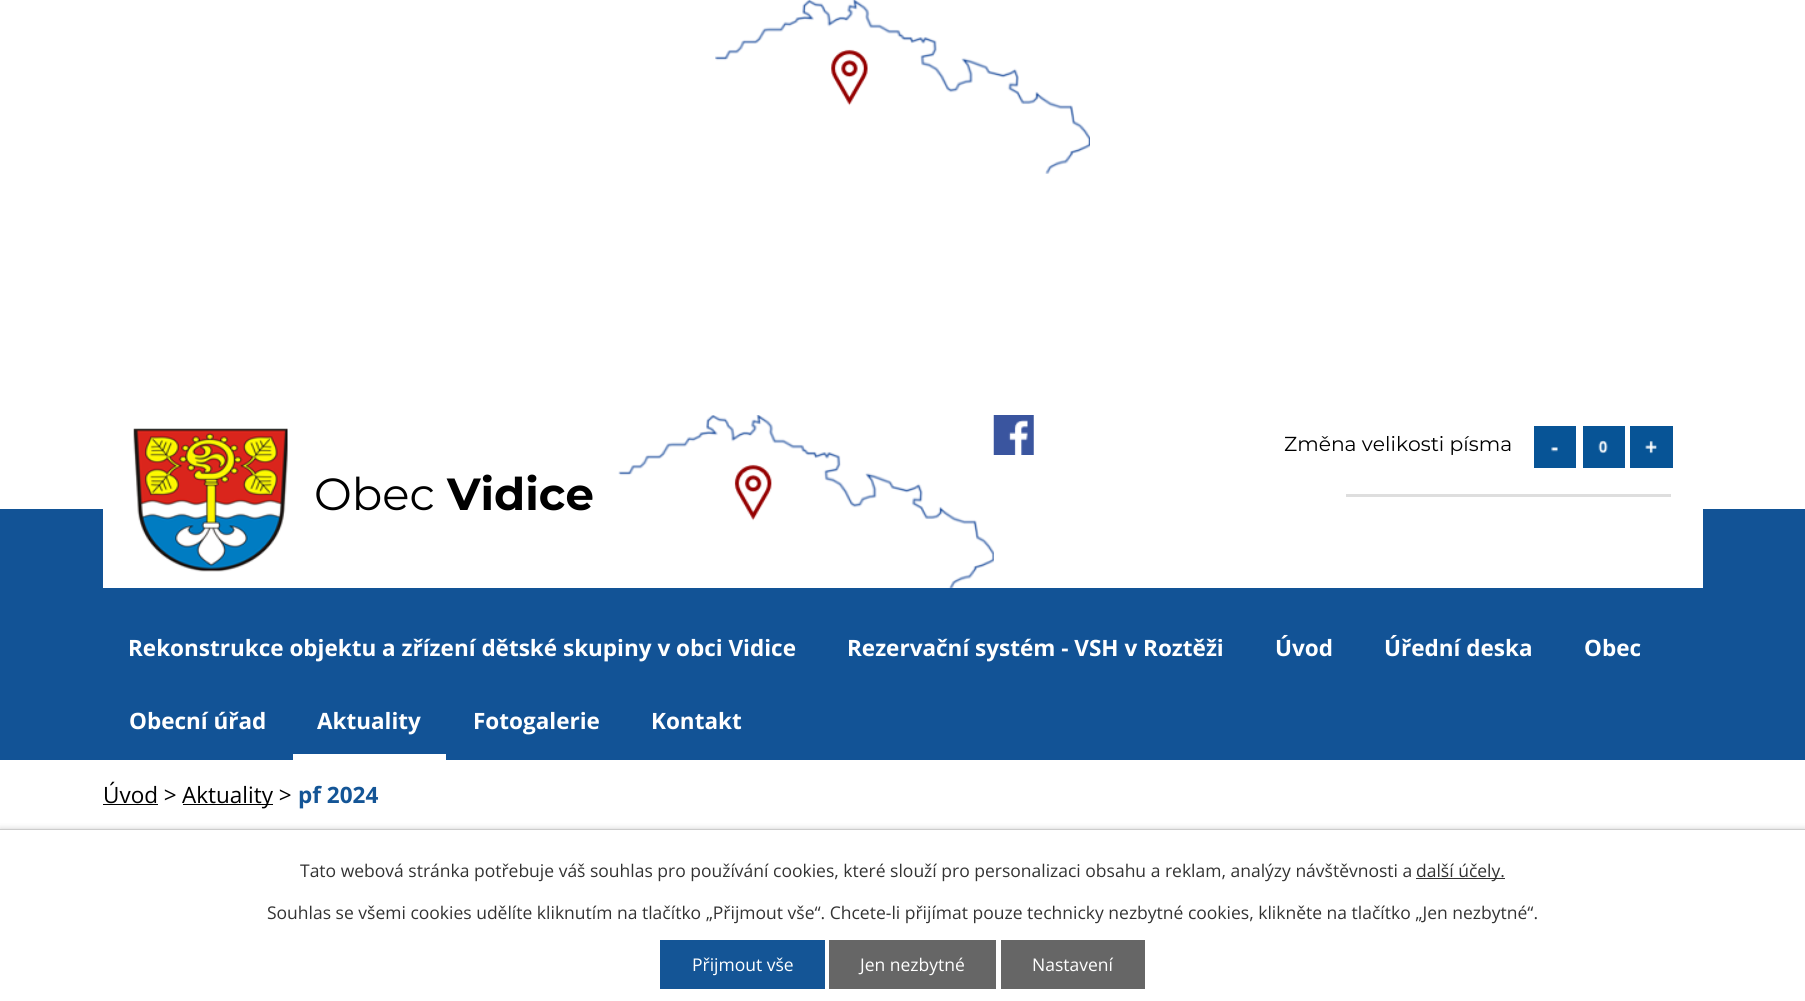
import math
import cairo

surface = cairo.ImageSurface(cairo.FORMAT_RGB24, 1805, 1001)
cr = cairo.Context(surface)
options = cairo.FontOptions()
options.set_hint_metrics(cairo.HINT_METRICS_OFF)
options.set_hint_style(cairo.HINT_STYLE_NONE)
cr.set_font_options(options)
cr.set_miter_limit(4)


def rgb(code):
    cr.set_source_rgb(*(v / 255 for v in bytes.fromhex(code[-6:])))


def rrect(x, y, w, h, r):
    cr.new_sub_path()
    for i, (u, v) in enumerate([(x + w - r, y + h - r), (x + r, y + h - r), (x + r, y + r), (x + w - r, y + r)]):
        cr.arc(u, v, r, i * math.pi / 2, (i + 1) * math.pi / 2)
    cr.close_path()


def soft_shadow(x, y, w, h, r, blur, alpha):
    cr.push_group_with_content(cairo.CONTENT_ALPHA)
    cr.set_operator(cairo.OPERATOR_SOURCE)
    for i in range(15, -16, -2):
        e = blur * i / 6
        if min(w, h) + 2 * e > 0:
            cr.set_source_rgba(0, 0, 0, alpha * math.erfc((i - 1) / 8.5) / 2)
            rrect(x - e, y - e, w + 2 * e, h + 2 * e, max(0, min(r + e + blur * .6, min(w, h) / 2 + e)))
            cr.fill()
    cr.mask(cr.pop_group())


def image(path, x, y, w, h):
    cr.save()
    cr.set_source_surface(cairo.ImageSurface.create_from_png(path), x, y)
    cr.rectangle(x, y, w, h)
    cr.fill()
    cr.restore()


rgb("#ffffff")
cr.paint()
image("img/1.png", 715, 0, 375, 174)
rgb("#125396")
cr.rectangle(0, 509, 1805, 251)
cr.fill()
rgb("#ffffff")
cr.rectangle(103, 509, 1600, 79)
cr.fill()
image("img/2.png", 618, 415, 376, 174)
image("img/3.png", 993, 415, 41, 40)
rgb("#075496")
cr.rectangle(1534, 426, 42, 42)
cr.fill()
image("img/4.png", 1551, 447, 7, 5)
cr.rectangle(1583, 426, 42, 42)
cr.fill()
image("img/5.png", 1598, 440, 10, 14)
cr.rectangle(1630, 426, 43, 42)
cr.fill()
image("img/6.png", 1645, 441, 12, 13)
image("img/7.png", 133, 428, 155, 144)
for x, y, w, h, color in [
    (1346, 494, 325, 3, "#dedede"),
    (293, 754, 153, 6, "#ffffff"),
    (103, 804, 55, 1, "#000000"),
    (183, 804, 90, 1, "#000000"),
]:
    rgb(color)
    cr.rectangle(x, y, w, h)
    cr.fill()
rgb("#000000")
soft_shadow(0, 829, 1805, 172, 0, 3, 0.2)
for x, y, w, h, color in [
    (0, 830, 1805, 171, "#ffffff"),
    (0, 829, 1805, 1, "#cccccc"),
    (1416, 878, 89, 1, "#333333"),
    (660, 940, 165, 49, "#145596"),
    (829, 940, 167, 49, "#666666"),
    (1001, 940, 144, 49, "#666666"),
]:
    rgb(color)
    cr.rectangle(x, y, w, h)
    cr.fill()
cr.select_font_face("Montserrat")
cr.set_font_size(20.25)
rgb("#000000")
cr.move_to(1284, 451)
cr.show_text("Změna velikosti písma")
cr.set_font_size(45)
cr.move_to(314, 510)
cr.show_text("Obec")
cr.select_font_face("Montserrat", cairo.FONT_SLANT_NORMAL, cairo.FONT_WEIGHT_BOLD)
cr.move_to(447, 510)
cr.show_text("Vidice")
cr.select_font_face("Open Sans", cairo.FONT_SLANT_NORMAL, cairo.FONT_WEIGHT_BOLD)
cr.set_font_size(22.5)
rgb("#ffffff")
for x, y, s in [
    (128, 656, "Rekonstrukce objektu a zřízení dětské skupiny v obci Vidice"),
    (847, 656, "Rezervační systém - VSH v Roztěži"),
    (1275, 656, "Úvod"),
    (1384, 656, "Úřední deska"),
    (1584, 656, "Obec"),
    (129, 729, "Obecní úřad"),
    (317, 729, "Aktuality"),
    (473, 729, "Fotogalerie"),
    (651, 729, "Kontakt"),
]:
    cr.move_to(x, y)
    cr.show_text(s)
cr.select_font_face("Open Sans")
rgb("#000000")
cr.move_to(103, 803)
cr.show_text("Úvod >")
cr.move_to(182, 803)
cr.show_text("Aktuality >")
cr.select_font_face("Open Sans", cairo.FONT_SLANT_NORMAL, cairo.FONT_WEIGHT_BOLD)
rgb("#145596")
cr.move_to(298, 803)
cr.show_text("pf 2024")
cr.select_font_face("Open Sans")
cr.set_font_size(17.5)
rgb("#333333")
for x, y, s in [
    (300, 877, "Tato webová stránka potřebuje váš souhlas pro používání cookies, které slouží pro personalizaci obsahu a reklam, analýzy návštěvnosti a"),
    (1416, 877, "další účely."),
    (267, 919, "Souhlas se všemi cookies udělíte kliknutím na tlačítko „Přijmout vše“. Chcete-li přijímat pouze technicky nezbytné cookies, klikněte na tlačítko „Jen nezbytné“."),
]:
    cr.move_to(x, y)
    cr.show_text(s)
rgb("#ffffff")
for x, y, s in [
    (692, 971, "Přijmout vše"),
    (860, 971, "Jen nezbytné"),
    (1032, 971, "Nastavení"),
]:
    cr.move_to(x, y)
    cr.show_text(s)
surface.write_to_png("page.png")
